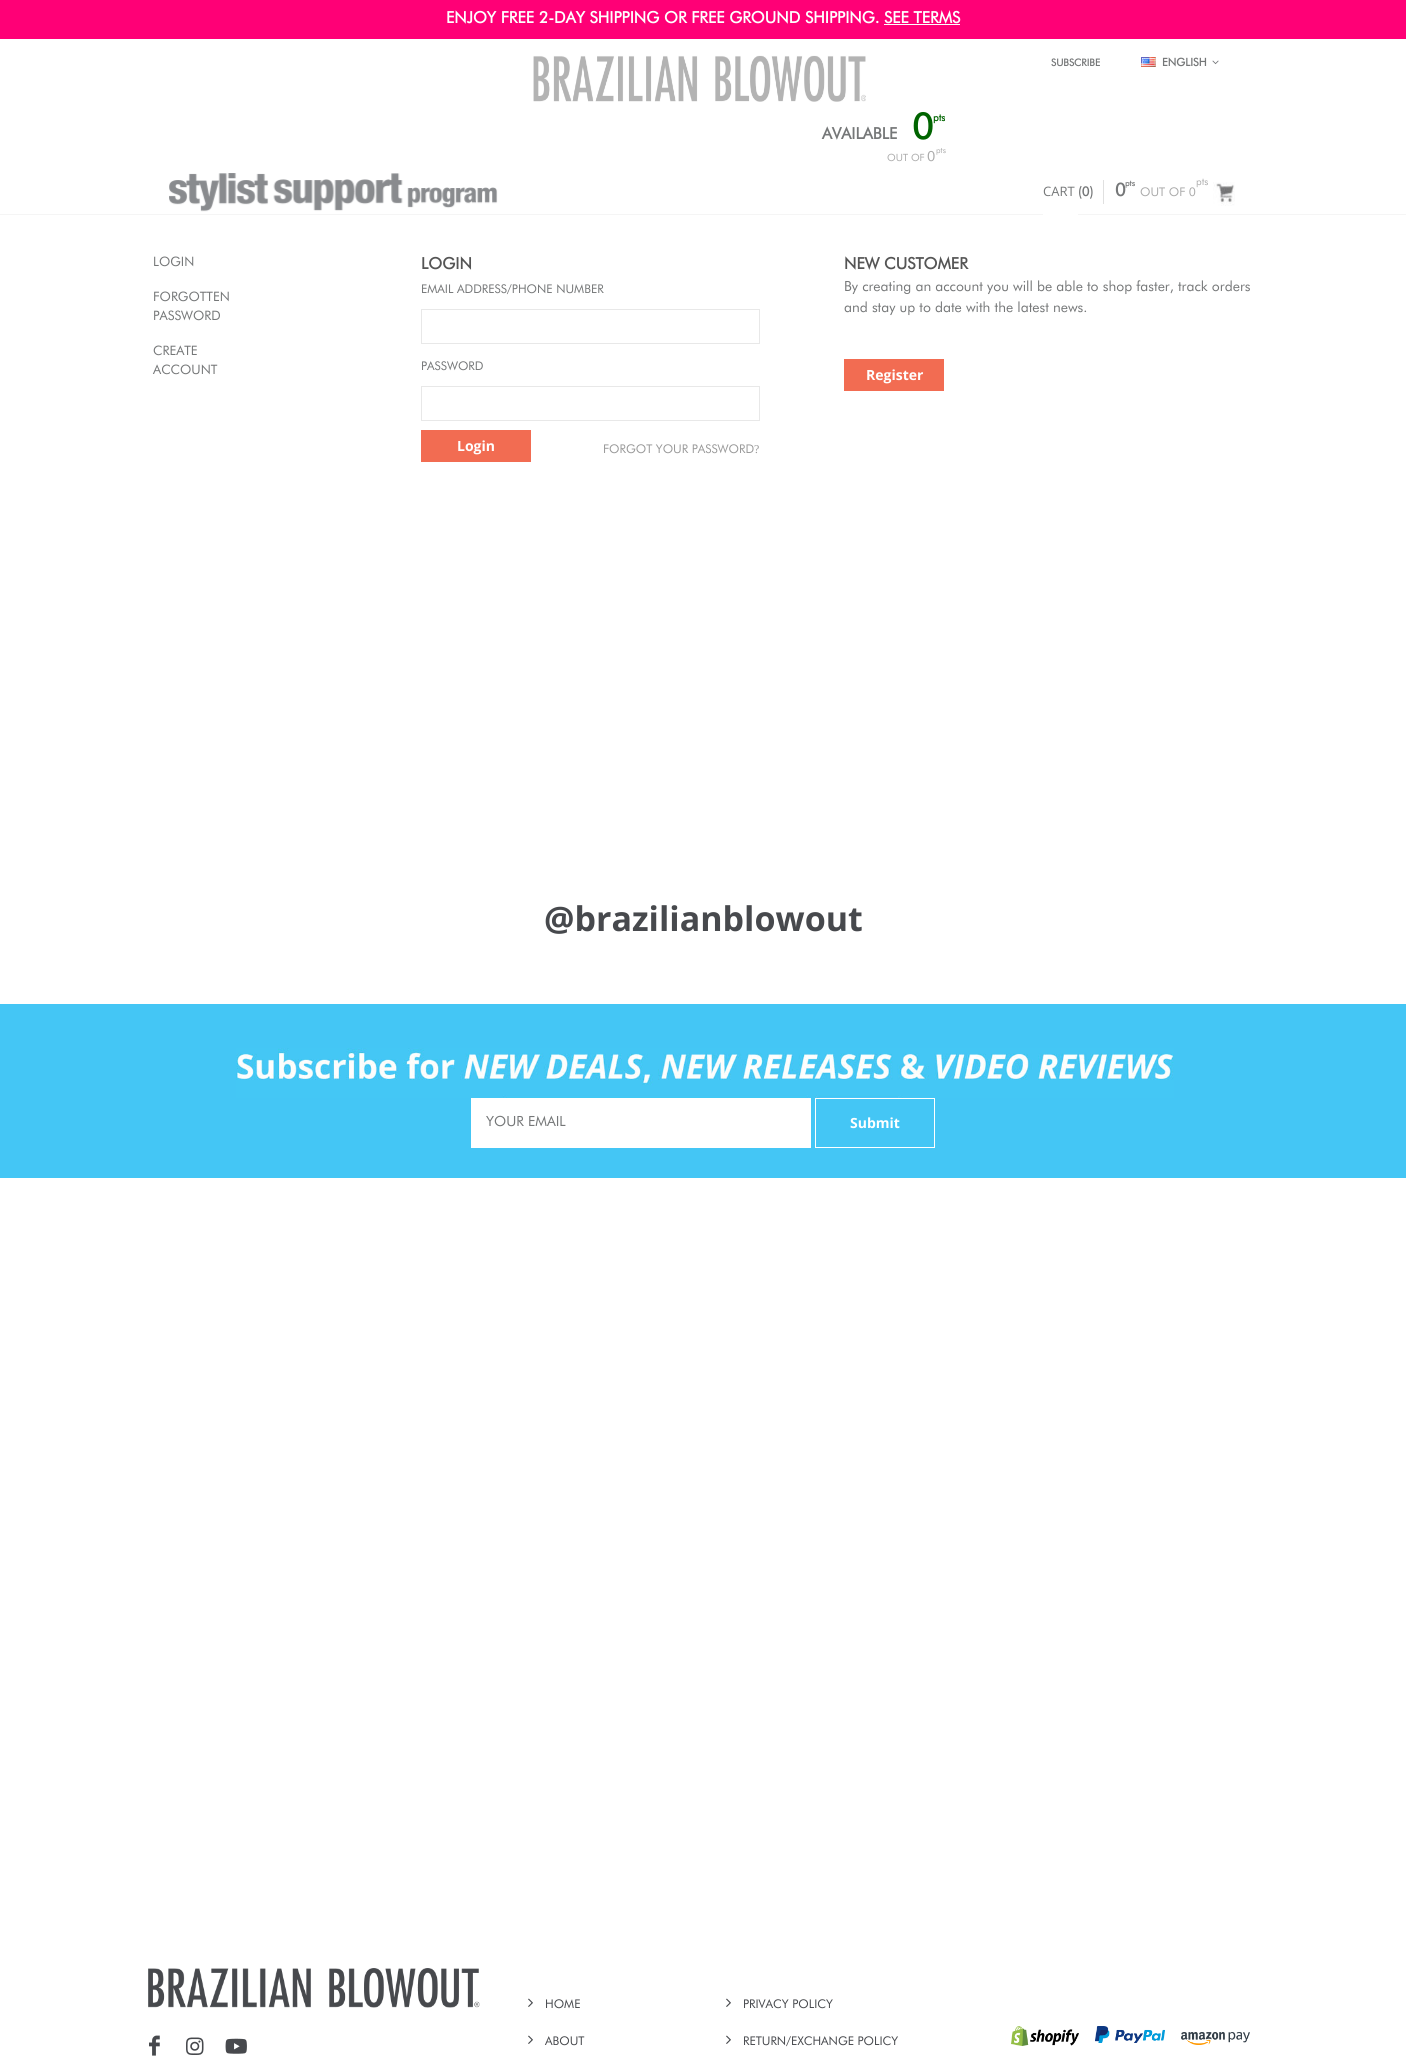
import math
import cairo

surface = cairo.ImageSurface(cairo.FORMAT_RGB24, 1406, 2056)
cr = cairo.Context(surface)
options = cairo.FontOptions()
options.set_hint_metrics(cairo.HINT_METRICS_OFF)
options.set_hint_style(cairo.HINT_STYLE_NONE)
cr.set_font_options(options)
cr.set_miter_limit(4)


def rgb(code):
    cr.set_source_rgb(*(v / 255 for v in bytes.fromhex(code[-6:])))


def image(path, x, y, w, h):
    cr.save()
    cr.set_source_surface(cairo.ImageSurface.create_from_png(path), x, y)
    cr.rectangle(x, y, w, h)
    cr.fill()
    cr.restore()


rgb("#ffffff")
cr.paint()
for x, y, w, h, color in [
    (0, 214, 1406, 1, "#f5f5f5"),
    (0, 0, 1406, 39, "#ff0076"),
    (884, 24, 76, 1, "#ffffff"),
]:
    rgb(color)
    cr.rectangle(x, y, w, h)
    cr.fill()
image("img/1.png", 533, 55, 333, 47)
image("img/2.png", 1141, 57, 15, 10)
image("img/3.png", 1212, 60, 7, 5)
image("img/4.png", 169, 173, 329, 39)
rgb("#e0e0e0")
cr.rectangle(1103, 180, 1, 24)
cr.fill()
rgb("#ffffff")
cr.rectangle(1043, 214, 35, 1)
cr.fill()
image("img/5.png", 1213, 182, 22, 24)
cr.rectangle(421.5, 309.5, 338, 34)
rgb("#e8e8e8")
cr.set_line_width(1)
cr.stroke()
cr.rectangle(421.5, 386.5, 338, 34)
cr.stroke()
for x, y, w, h, color in [
    (421, 430, 110, 32, "#f26c52"),
    (844, 359, 100, 32, "#f26c52"),
    (0, 1004, 1406, 174, "#44c6f5"),
]:
    rgb(color)
    cr.rectangle(x, y, w, h)
    cr.fill()
image("img/6.png", 236, 1048, 938, 50)
rgb("#ffffff")
cr.rectangle(471, 1098, 340, 50)
cr.fill()
cr.rectangle(815.5, 1098.5, 119, 49)
cr.stroke()
image("img/7.png", 148, 1968, 332, 40)
image("img/8.png", 149, 2035, 11, 21)
image("img/9.png", 186, 2037, 18, 18)
image("img/10.png", 225, 2038, 22, 16)
image("img/11.png", 528, 1998, 5, 9)
image("img/11.png", 528, 2035, 5, 9)
image("img/11.png", 726, 1998, 5, 9)
image("img/11.png", 726, 2035, 5, 9)
image("img/12.png", 1011, 2026, 68, 20)
image("img/13.png", 1095, 2026, 70, 17)
image("img/14.png", 1181, 2032, 69, 13)
cr.select_font_face("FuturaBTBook", cairo.FONT_SLANT_NORMAL, cairo.FONT_WEIGHT_BOLD)
cr.set_font_size(16)
cr.move_to(446, 23)
cr.show_text("ENJOY FREE 2-DAY SHIPPING OR FREE GROUND SHIPPING.")
cr.move_to(884, 23)
cr.show_text("SEE TERMS")
cr.set_font_size(10)
rgb("#757778")
cr.move_to(1051, 66)
cr.show_text("SUBSCRIBE")
cr.set_font_size(11)
cr.move_to(1162, 66)
cr.show_text("ENGLISH")
cr.set_font_size(36)
rgb("#006400")
cr.move_to(912, 139)
cr.show_text("0")
cr.set_font_size(10)
cr.move_to(933, 121)
cr.show_text("pts")
cr.set_font_size(16)
rgb("#757778")
cr.move_to(822, 139)
cr.show_text("AVAILABLE")
cr.select_font_face("FuturaBTBook")
cr.set_font_size(10)
rgb("#aaaaaa")
cr.move_to(887, 161)
cr.show_text("OUT OF")
cr.set_font_size(14)
cr.move_to(927, 161)
cr.show_text("0")
cr.set_font_size(8)
cr.move_to(936, 153)
cr.show_text("pts")
cr.select_font_face("Open Sans")
cr.set_font_size(13)
rgb("#757778")
cr.move_to(1043, 196)
cr.show_text("CART")
cr.select_font_face("FuturaBTBook", cairo.FONT_SLANT_NORMAL, cairo.FONT_WEIGHT_BOLD)
cr.move_to(1078, 196)
cr.show_text("(0)")
cr.set_font_size(18)
cr.move_to(1115, 196)
cr.show_text("0")
cr.set_font_size(8)
cr.move_to(1125, 186)
cr.show_text("pts")
cr.select_font_face("FuturaBTBook")
cr.set_font_size(12)
rgb("#aaaaaa")
cr.move_to(1140, 196)
cr.show_text("OUT OF 0")
cr.set_font_size(10)
cr.move_to(1196, 185)
cr.show_text("pts")
cr.set_font_size(13)
rgb("#757778")
for x, y, s in [
    (153, 266, "LOGIN"),
    (153, 301, "FORGOTTEN"),
    (153, 320, "PASSWORD"),
    (153, 355, "CREATE"),
    (153, 374, "ACCOUNT"),
]:
    cr.move_to(x, y)
    cr.show_text(s)
cr.select_font_face("FuturaBTBook", cairo.FONT_SLANT_NORMAL, cairo.FONT_WEIGHT_BOLD)
cr.set_font_size(16)
rgb("#555555")
cr.move_to(421, 269)
cr.show_text("LOGIN")
cr.select_font_face("FuturaBTBook")
cr.set_font_size(12)
rgb("#757778")
cr.move_to(421, 293)
cr.show_text("EMAIL ADDRESS/PHONE NUMBER")
cr.move_to(421, 370)
cr.show_text("PASSWORD")
cr.select_font_face("Open Sans", cairo.FONT_SLANT_NORMAL, cairo.FONT_WEIGHT_BOLD)
cr.set_font_size(14)
rgb("#ffffff")
cr.move_to(457, 451)
cr.show_text("Login")
cr.select_font_face("FuturaBTBook")
cr.set_font_size(12)
rgb("#999999")
cr.move_to(603, 453)
cr.show_text("FORGOT YOUR PASSWORD")
cr.select_font_face("Liberation Serif")
cr.move_to(754, 453)
cr.show_text("?")
cr.select_font_face("FuturaBTBook", cairo.FONT_SLANT_NORMAL, cairo.FONT_WEIGHT_BOLD)
cr.set_font_size(16)
rgb("#555555")
cr.move_to(844, 269)
cr.show_text("NEW CUSTOMER")
cr.select_font_face("FuturaBTBook")
cr.set_font_size(14)
rgb("#757778")
cr.move_to(844, 291)
cr.show_text("By creating an account you will be able to shop faster, track orders")
cr.move_to(844, 312)
cr.show_text("and stay up to date with the latest news.")
cr.select_font_face("Open Sans", cairo.FONT_SLANT_NORMAL, cairo.FONT_WEIGHT_BOLD)
rgb("#ffffff")
cr.move_to(866, 380)
cr.show_text("Register")
cr.set_font_size(34)
rgb("#47494d")
cr.move_to(544, 931)
cr.show_text("@brazilianblowout")
cr.select_font_face("FuturaBTBook")
cr.set_font_size(14)
rgb("#757778")
cr.move_to(486, 1126)
cr.show_text("YOUR EMAIL")
cr.select_font_face("Open Sans", cairo.FONT_SLANT_NORMAL, cairo.FONT_WEIGHT_BOLD)
rgb("#ffffff")
cr.move_to(850, 1128)
cr.show_text("Submit")
cr.select_font_face("FuturaBTBook")
cr.set_font_size(12)
rgb("#47494d")
for x, y, s in [
    (545, 2008, "HOME"),
    (545, 2045, "ABOUT"),
    (743, 2008, "PRIVACY POLICY"),
    (743, 2045, "RETURN/EXCHANGE POLICY"),
]:
    cr.move_to(x, y)
    cr.show_text(s)
surface.write_to_png("page.png")
